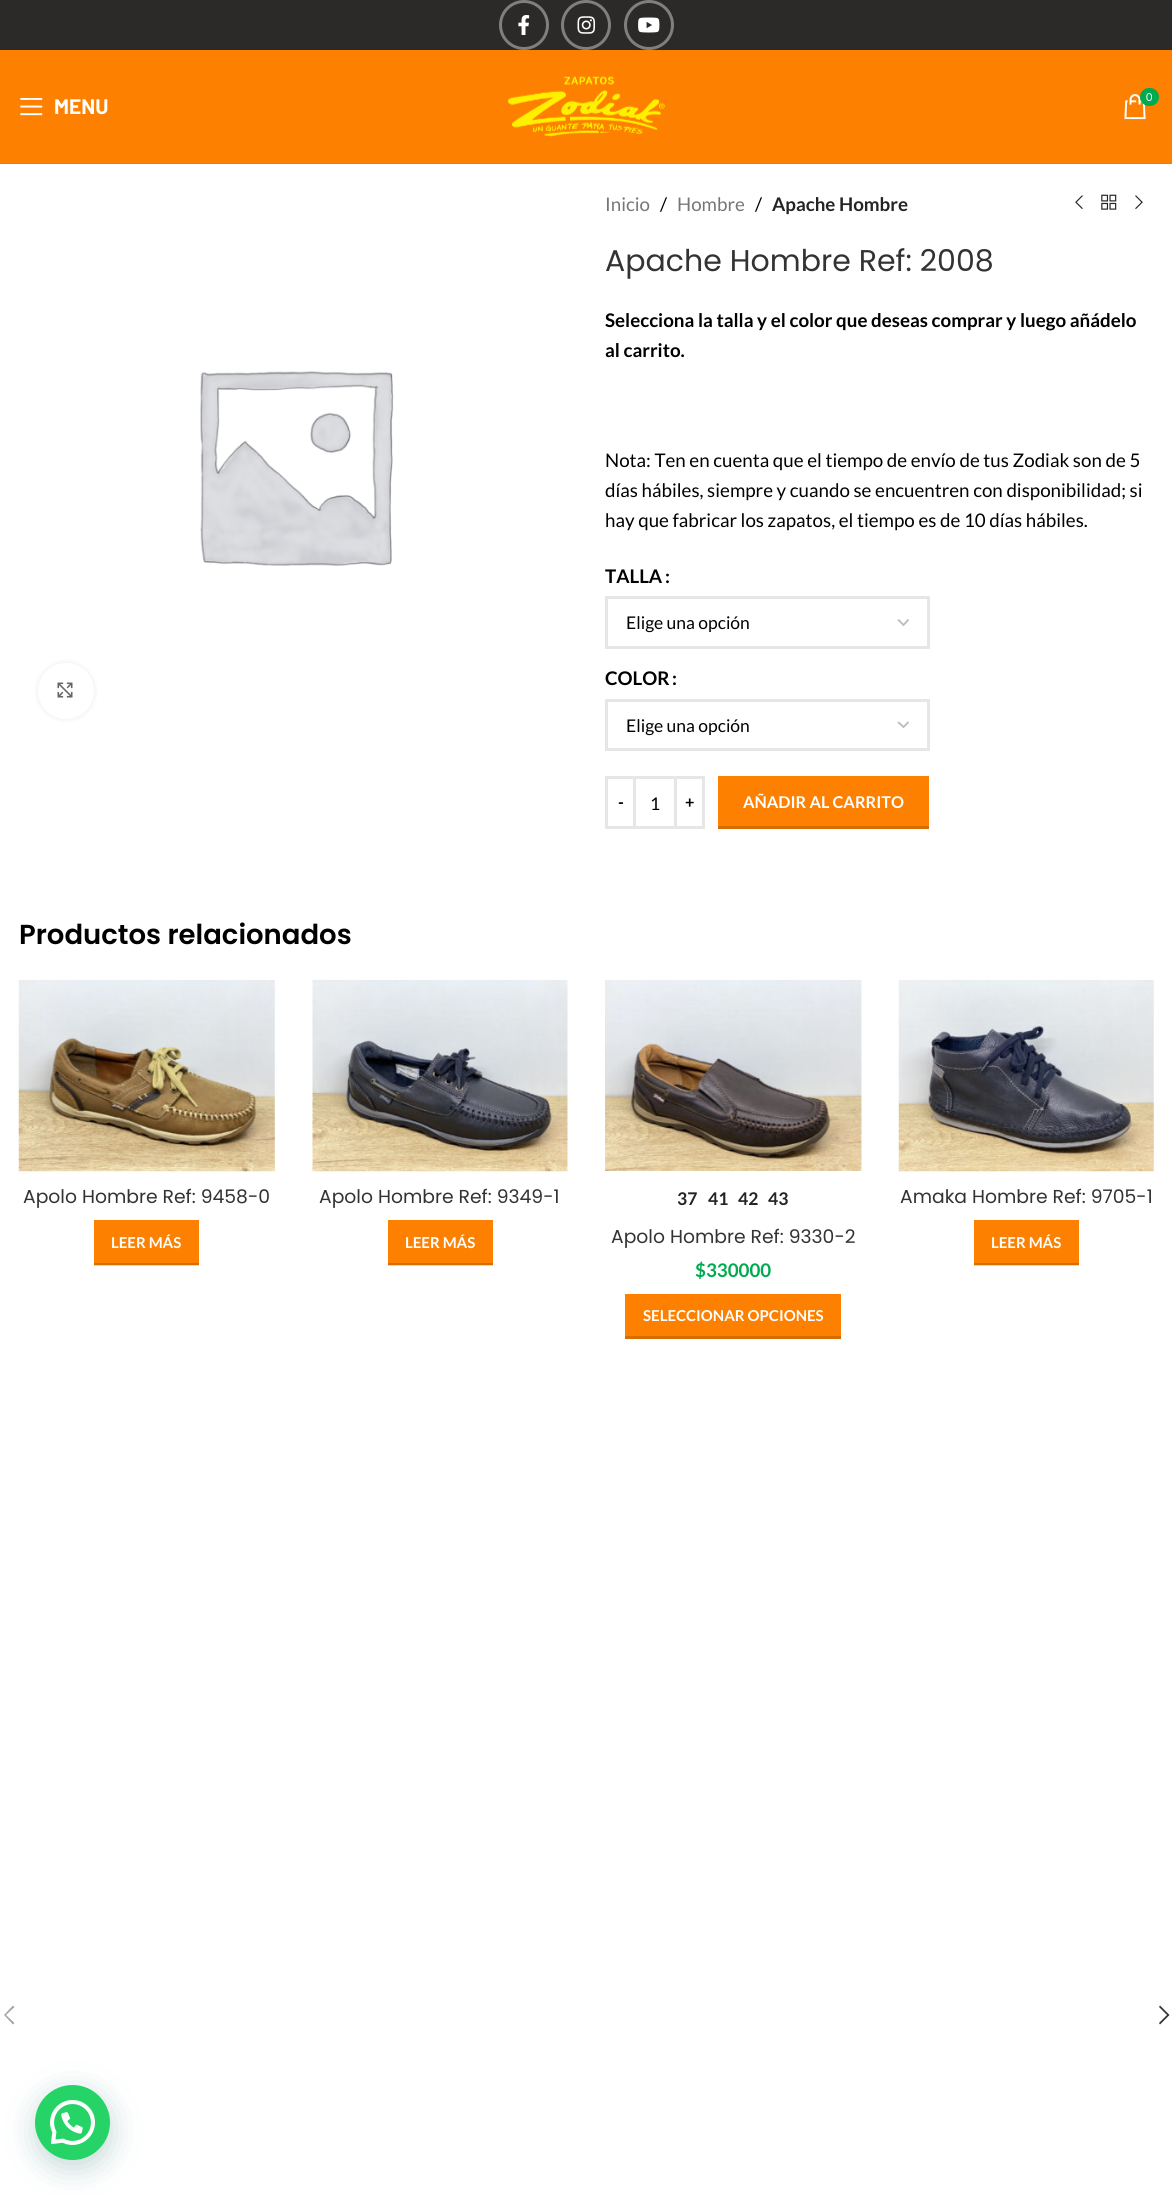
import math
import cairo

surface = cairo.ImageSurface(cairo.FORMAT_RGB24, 1172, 2195)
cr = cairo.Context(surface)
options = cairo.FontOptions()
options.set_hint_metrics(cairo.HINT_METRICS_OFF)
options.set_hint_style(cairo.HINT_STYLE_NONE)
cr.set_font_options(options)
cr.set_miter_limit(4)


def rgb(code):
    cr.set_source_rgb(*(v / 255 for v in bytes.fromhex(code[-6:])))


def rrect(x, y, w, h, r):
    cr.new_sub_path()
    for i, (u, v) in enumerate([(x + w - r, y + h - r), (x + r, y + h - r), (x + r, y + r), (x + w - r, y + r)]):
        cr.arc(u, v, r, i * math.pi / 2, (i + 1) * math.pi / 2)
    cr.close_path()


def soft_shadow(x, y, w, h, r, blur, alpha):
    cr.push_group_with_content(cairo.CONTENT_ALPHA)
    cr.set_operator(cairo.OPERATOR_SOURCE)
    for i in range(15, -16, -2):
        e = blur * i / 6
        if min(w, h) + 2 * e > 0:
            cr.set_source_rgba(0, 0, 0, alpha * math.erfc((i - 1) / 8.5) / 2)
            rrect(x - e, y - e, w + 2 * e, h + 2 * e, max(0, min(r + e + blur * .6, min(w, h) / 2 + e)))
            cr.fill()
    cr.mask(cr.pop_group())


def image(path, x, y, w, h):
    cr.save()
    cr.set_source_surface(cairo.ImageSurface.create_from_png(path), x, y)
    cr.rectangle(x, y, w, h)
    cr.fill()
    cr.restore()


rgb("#ffffff")
cr.paint()
for x, y, w, h, color in [
    (974, 1265, 105, 1, "#d9d9d9"),
    (388, 1265, 105, 1, "#d9d9d9"),
    (94, 1265, 105, 1, "#d9d9d9"),
    (0, 0, 1172, 50, "#2b2a29"),
]:
    rgb(color)
    cr.rectangle(x, y, w, h)
    cr.fill()
cr.arc(524, 25, 23.5, 0, 2 * math.pi)
rgb("#807f7f")
cr.set_line_width(3)
cr.stroke()
image("img/1.png", 518, 15, 12, 20)
cr.arc(586, 25, 23.5, 0, 2 * math.pi)
cr.stroke()
image("img/2.png", 577, 16, 18, 18)
cr.arc(649, 25, 23.5, 0, 2 * math.pi)
cr.stroke()
image("img/3.png", 638, 17, 22, 16)
rgb("#fd8000")
cr.rectangle(0, 50, 1172, 113)
cr.fill()
rgb("#e4801a")
cr.rectangle(0, 163, 1172, 1)
cr.fill()
image("img/4.png", 508, 76, 157, 61)
image("img/5.png", 1124, 94, 22, 26)
rgb("#00aa50")
rrect(1140, 88, 19, 18, 9)
cr.fill()
image("img/6.png", 20, 97, 23, 19)
image("img/7.png", 200, 371, 194, 195)
rgb("#000000")
soft_shadow(38, 663, 56, 56, 28, 3, 0.08)
rgb("#ffffff")
cr.arc(66, 691, 28, 0, 2 * math.pi)
cr.fill()
image("img/8.png", 57, 682, 16, 16)
image("img/9.png", 1075, 195, 8, 14)
image("img/10.png", 1101, 194, 16, 16)
image("img/11.png", 1135, 195, 8, 15)
cr.new_path()
cr.move_to(898, 619.5)
cr.line_to(903.5, 625)
cr.line_to(908.5, 619.5)
rgb("#bbbbbb")
cr.set_line_width(1.8)
cr.stroke()
cr.rectangle(606.5, 597.5, 322, 50)
rgb("#e6e6e6")
cr.set_line_width(3)
cr.stroke()
cr.new_path()
cr.move_to(898, 722)
cr.line_to(903.5, 727)
cr.line_to(908.5, 722)
rgb("#bbbbbb")
cr.set_line_width(1.8)
cr.stroke()
cr.rectangle(606.5, 700.5, 322, 49)
rgb("#e6e6e6")
cr.set_line_width(3)
cr.stroke()
cr.rectangle(606.5, 777.5, 28, 50)
cr.stroke()
cr.rectangle(636, 776, 38, 3)
cr.fill()
cr.rectangle(636, 826, 38, 3)
cr.fill()
cr.rectangle(675.5, 777.5, 28, 50)
cr.stroke()
rgb("#fd8000")
cr.rectangle(718, 776, 211, 50)
cr.fill()
rgb("#d76d00")
cr.rectangle(718, 826, 211, 3)
cr.fill()
image("img/12.png", 18, 980, 257, 192)
rgb("#fd8000")
cr.rectangle(94, 1220, 105, 43)
cr.fill()
rgb("#d76d00")
cr.rectangle(94, 1263, 105, 2)
cr.fill()
image("img/13.png", 312, 980, 256, 192)
rgb("#fd8000")
cr.rectangle(388, 1220, 105, 43)
cr.fill()
rgb("#d76d00")
cr.rectangle(388, 1263, 105, 2)
cr.fill()
image("img/14.png", 605, 980, 257, 191)
rgb("#fd8000")
cr.rectangle(625, 1294, 216, 42)
cr.fill()
rgb("#d76d00")
cr.rectangle(625, 1336, 216, 3)
cr.fill()
image("img/15.png", 898, 980, 256, 192)
rgb("#fd8000")
cr.rectangle(974, 1220, 105, 43)
cr.fill()
rgb("#d76d00")
cr.rectangle(974, 1263, 105, 2)
cr.fill()
rgb("#a5a5a5")
cr.new_path()
cr.move_to(14.5, 2007)
cr.line_to(13, 2005.5)
cr.line_to(4, 2015)
cr.line_to(13, 2024.5)
cr.line_to(14.5, 2023)
cr.line_to(6, 2015)
cr.close_path()
cr.fill()
rgb("#333333")
cr.new_path()
cr.move_to(1159, 2007)
cr.line_to(1167, 2015)
cr.line_to(1159, 2023)
cr.line_to(1160, 2024.5)
cr.line_to(1169.5, 2015)
cr.line_to(1160, 2005.5)
cr.close_path()
cr.fill()
rgb("#075e54")
soft_shadow(36, 2093, 75, 75, 37.5, 15, 0.24)
rgb("#25d366")
cr.arc(72.5, 2122.5, 37.5, 0, 2 * math.pi)
cr.fill()
image("img/16.png", 50, 2100, 45, 45)
cr.select_font_face("Lato")
cr.set_font_size(11)
rgb("#ffffff")
cr.move_to(1146, 101)
cr.show_text("0")
cr.select_font_face("Barlow", cairo.FONT_SLANT_NORMAL, cairo.FONT_WEIGHT_BOLD)
cr.set_font_size(21)
cr.move_to(54, 114)
cr.show_text("MENU")
cr.select_font_face("Lato")
cr.set_font_size(18.75)
rgb("#767676")
cr.move_to(605, 211)
cr.show_text("Inicio")
rgb("#000000")
cr.move_to(660, 211)
cr.show_text("/")
rgb("#767676")
cr.move_to(677, 211)
cr.show_text("Hombre")
rgb("#000000")
cr.move_to(755, 211)
cr.show_text("/")
cr.select_font_face("Lato", cairo.FONT_SLANT_NORMAL, cairo.FONT_WEIGHT_BOLD)
rgb("#242424")
cr.move_to(772, 211)
cr.show_text("Apache Hombre")
cr.select_font_face("Poppins")
cr.set_font_size(30)
rgb("#333333")
cr.move_to(605, 271)
cr.show_text("Apache Hombre Ref: 2008")
cr.select_font_face("Lato", cairo.FONT_SLANT_NORMAL, cairo.FONT_WEIGHT_BOLD)
cr.set_font_size(18.75)
rgb("#000000")
cr.move_to(605, 327)
cr.show_text("Selecciona la talla y el color que deseas comprar y luego añádelo")
cr.move_to(605, 357)
cr.show_text("al carrito.")
cr.select_font_face("Lato")
for x, y, s in [
    (605, 467, "Nota: Ten en cuenta que el tiempo de envío de tus Zodiak son de 5"),
    (605, 497, "días hábiles, siempre y cuando se encuentren con disponibilidad; si"),
    (605, 527, "hay que fabricar los zapatos, el tiempo es de 10 días hábiles."),
]:
    cr.move_to(x, y)
    cr.show_text(s)
cr.select_font_face("Lato", cairo.FONT_SLANT_NORMAL, cairo.FONT_WEIGHT_BOLD)
cr.move_to(605, 583)
cr.show_text("TALLA")
cr.move_to(665, 583)
cr.show_text(":")
cr.select_font_face("Lato")
cr.set_font_size(17.5)
cr.move_to(626, 629)
cr.show_text("Elige una opción")
cr.select_font_face("Lato", cairo.FONT_SLANT_NORMAL, cairo.FONT_WEIGHT_BOLD)
cr.set_font_size(18.75)
cr.move_to(605, 685)
cr.show_text("COLOR")
cr.move_to(672, 685)
cr.show_text(":")
cr.select_font_face("Lato")
cr.set_font_size(17.5)
cr.move_to(626, 732)
cr.show_text("Elige una opción")
cr.select_font_face("Lato", cairo.FONT_SLANT_NORMAL, cairo.FONT_WEIGHT_BOLD)
cr.set_font_size(16.25)
cr.move_to(618, 808)
cr.show_text("-")
cr.select_font_face("Lato")
cr.set_font_size(17.5)
cr.move_to(650, 810)
cr.show_text("1")
cr.select_font_face("Lato", cairo.FONT_SLANT_NORMAL, cairo.FONT_WEIGHT_BOLD)
cr.set_font_size(16.25)
cr.move_to(685, 808)
cr.show_text("+")
rgb("#ffffff")
cr.move_to(743, 808)
cr.show_text("AÑADIR AL CARRITO")
cr.select_font_face("Poppins SemiBold")
cr.set_font_size(27.5)
rgb("#000000")
cr.move_to(19, 944)
cr.show_text("Productos relacionados")
cr.select_font_face("Poppins")
cr.set_font_size(18.75)
rgb("#333333")
cr.move_to(23, 1203)
cr.show_text("Apolo Hombre Ref: 9458-0")
cr.select_font_face("Lato", cairo.FONT_SLANT_NORMAL, cairo.FONT_WEIGHT_BOLD)
cr.set_font_size(15)
rgb("#ffffff")
cr.move_to(111, 1248)
cr.show_text("LEER MÁS")
cr.new_path()
cr.move_to(138.5, 1250)
cr.curve_to(134.5, 1246, 134.5, 1239, 138.5, 1235)
rgb("#fd8000")
cr.set_line_width(1.2)
cr.stroke()
cr.select_font_face("Poppins")
cr.set_font_size(18.75)
rgb("#333333")
cr.move_to(319, 1203)
cr.show_text("Apolo Hombre Ref: 9349-1")
cr.select_font_face("Lato", cairo.FONT_SLANT_NORMAL, cairo.FONT_WEIGHT_BOLD)
cr.set_font_size(15)
rgb("#ffffff")
cr.move_to(405, 1248)
cr.show_text("LEER MÁS")
cr.set_font_size(17.5)
rgb("#242424")
for x, y, s in [
    (677, 1205, "37"),
    (708, 1205, "41"),
    (738, 1205, "42"),
    (768, 1205, "43"),
]:
    cr.move_to(x, y)
    cr.show_text(s)
cr.select_font_face("Poppins")
cr.set_font_size(18.75)
rgb("#333333")
cr.move_to(611, 1243)
cr.show_text("Apolo Hombre Ref: 9330-2")
cr.select_font_face("Lato", cairo.FONT_SLANT_NORMAL, cairo.FONT_WEIGHT_BOLD)
rgb("#00aa50")
cr.move_to(695, 1277)
cr.show_text("$330000")
cr.set_font_size(15)
rgb("#ffffff")
cr.move_to(643, 1321)
cr.show_text("SELECCIONAR OPCIONES")
cr.select_font_face("Poppins")
cr.set_font_size(18.75)
rgb("#333333")
cr.move_to(900, 1203)
cr.show_text("Amaka Hombre Ref: 9705-1")
cr.select_font_face("Lato", cairo.FONT_SLANT_NORMAL, cairo.FONT_WEIGHT_BOLD)
cr.set_font_size(15)
rgb("#ffffff")
cr.move_to(991, 1248)
cr.show_text("LEER MÁS")
surface.write_to_png("page.png")
